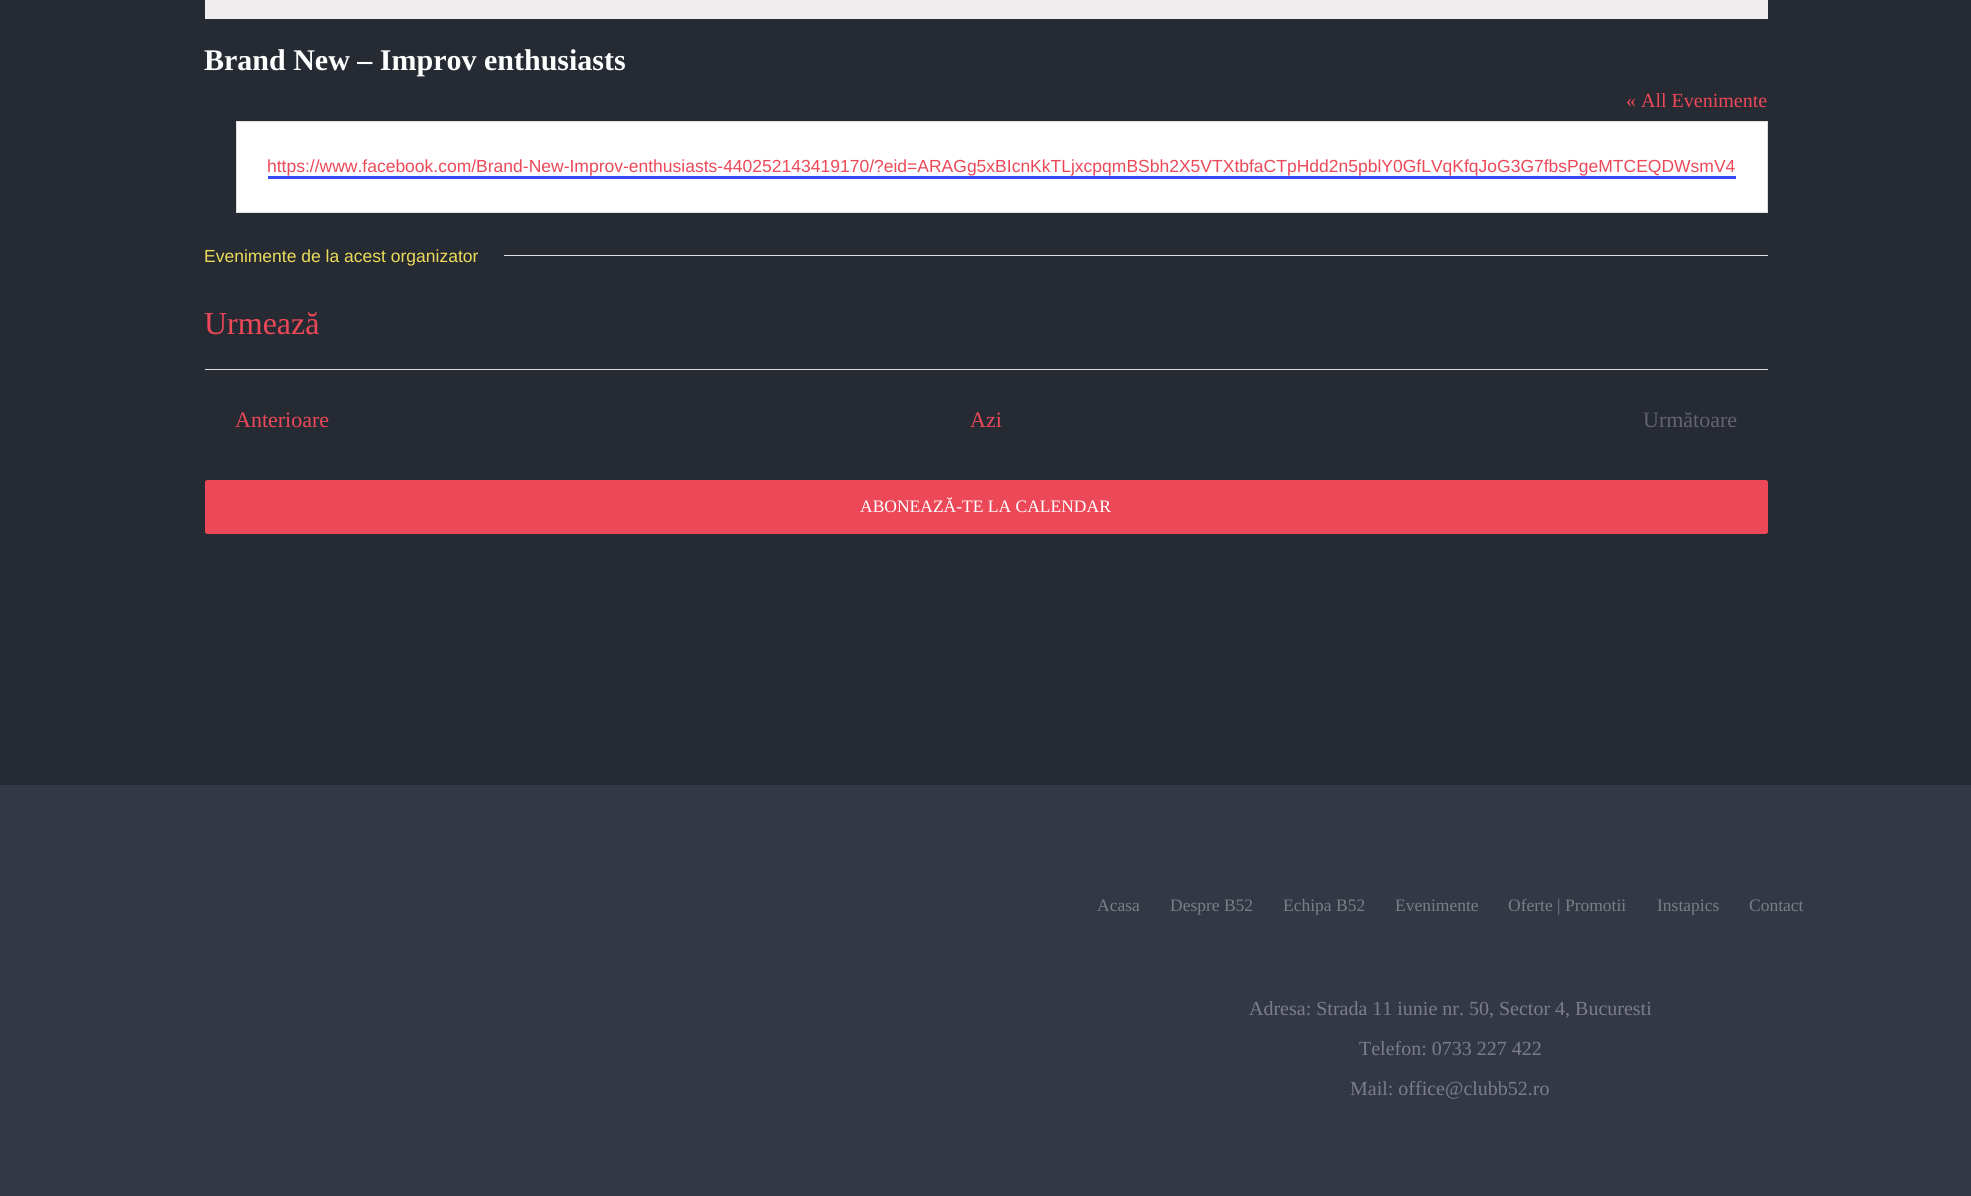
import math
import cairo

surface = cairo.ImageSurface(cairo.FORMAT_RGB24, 1971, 1196)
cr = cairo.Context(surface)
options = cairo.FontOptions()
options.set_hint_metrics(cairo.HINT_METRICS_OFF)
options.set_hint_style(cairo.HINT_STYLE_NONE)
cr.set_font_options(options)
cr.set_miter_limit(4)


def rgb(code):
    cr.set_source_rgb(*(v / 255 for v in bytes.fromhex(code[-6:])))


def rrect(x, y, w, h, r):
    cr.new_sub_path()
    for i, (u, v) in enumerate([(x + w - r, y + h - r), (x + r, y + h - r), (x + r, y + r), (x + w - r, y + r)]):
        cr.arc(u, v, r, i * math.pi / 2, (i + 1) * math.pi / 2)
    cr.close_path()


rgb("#252a33")
cr.paint()
rgb("#efeded")
cr.rectangle(205, 0, 1563, 19)
cr.fill()
rgb("#ffffff")
cr.rectangle(236.5, 121.5, 1531, 91)
cr.fill_preserve()
rgb("#e0dede")
cr.set_line_width(1)
cr.stroke()
for x, y, w, h, color in [
    (268, 176, 1468, 3, "#334aff"),
    (504, 255, 1264, 1, "#e0dede"),
    (205, 369, 1563, 1, "#e0dede"),
]:
    rgb(color)
    cr.rectangle(x, y, w, h)
    cr.fill()
rgb("#ec4858")
rrect(205, 480, 1563, 54, 2.5)
cr.fill()
rgb("#323844")
cr.rectangle(0, 785, 1971, 411)
cr.fill()
cr.select_font_face("Liberation Serif", cairo.FONT_SLANT_NORMAL, cairo.FONT_WEIGHT_BOLD)
cr.set_font_size(30)
rgb("#ffffff")
cr.move_to(204, 70)
cr.show_text("Brand New – Improv enthusiasts")
cr.select_font_face("Liberation Serif")
cr.set_font_size(20)
rgb("#ec4858")
cr.move_to(1626, 107)
cr.show_text("« All Evenimente")
cr.select_font_face("Liberation Sans")
cr.set_font_size(17.5)
cr.move_to(267, 172)
cr.show_text("https://www.facebook.com/Brand-New-Improv-enthusiasts-440252143419170/?eid=ARAGg5xBIcnKkTLjxcpqmBSbh2X5VTXtbfaCTpHdd2n5pblY0GfLVqKfqJoG3G7fbsPgeMTCEQDWsmV4")
rgb("#eddc5a")
cr.move_to(204, 262)
cr.show_text("Evenimente de la acest organizator")
cr.select_font_face("Liberation Serif")
cr.set_font_size(32)
rgb("#ec4858")
cr.move_to(204, 334)
cr.show_text("Urmează")
cr.set_font_size(22)
cr.move_to(235, 427)
cr.show_text("Anterioare")
cr.move_to(970, 427)
cr.show_text("Azi")
rgb("#636372")
cr.move_to(1643, 427)
cr.show_text("Următoare")
cr.set_font_size(17.5)
rgb("#ffffff")
cr.move_to(860, 512)
cr.show_text("ABONEAZĂ-TE LA CALENDAR")
rgb("#7a7e85")
for x, y, s in [
    (1097, 911, "Acasa"),
    (1170, 911, "Despre B52"),
    (1283, 911, "Echipa B52"),
    (1395, 911, "Evenimente"),
    (1508, 911, "Oferte | Promotii"),
    (1657, 911, "Instapics"),
    (1749, 911, "Contact"),
]:
    cr.move_to(x, y)
    cr.show_text(s)
cr.set_font_size(20)
rgb("#7d7b8d")
for x, y, s in [
    (1249, 1015, "Adresa: Strada 11 iunie nr. 50, Sector 4, Bucuresti"),
    (1359, 1055, "Telefon: 0733 227 422"),
    (1350, 1095, "Mail: office@clubb52.ro"),
]:
    cr.move_to(x, y)
    cr.show_text(s)
surface.write_to_png("page.png")
